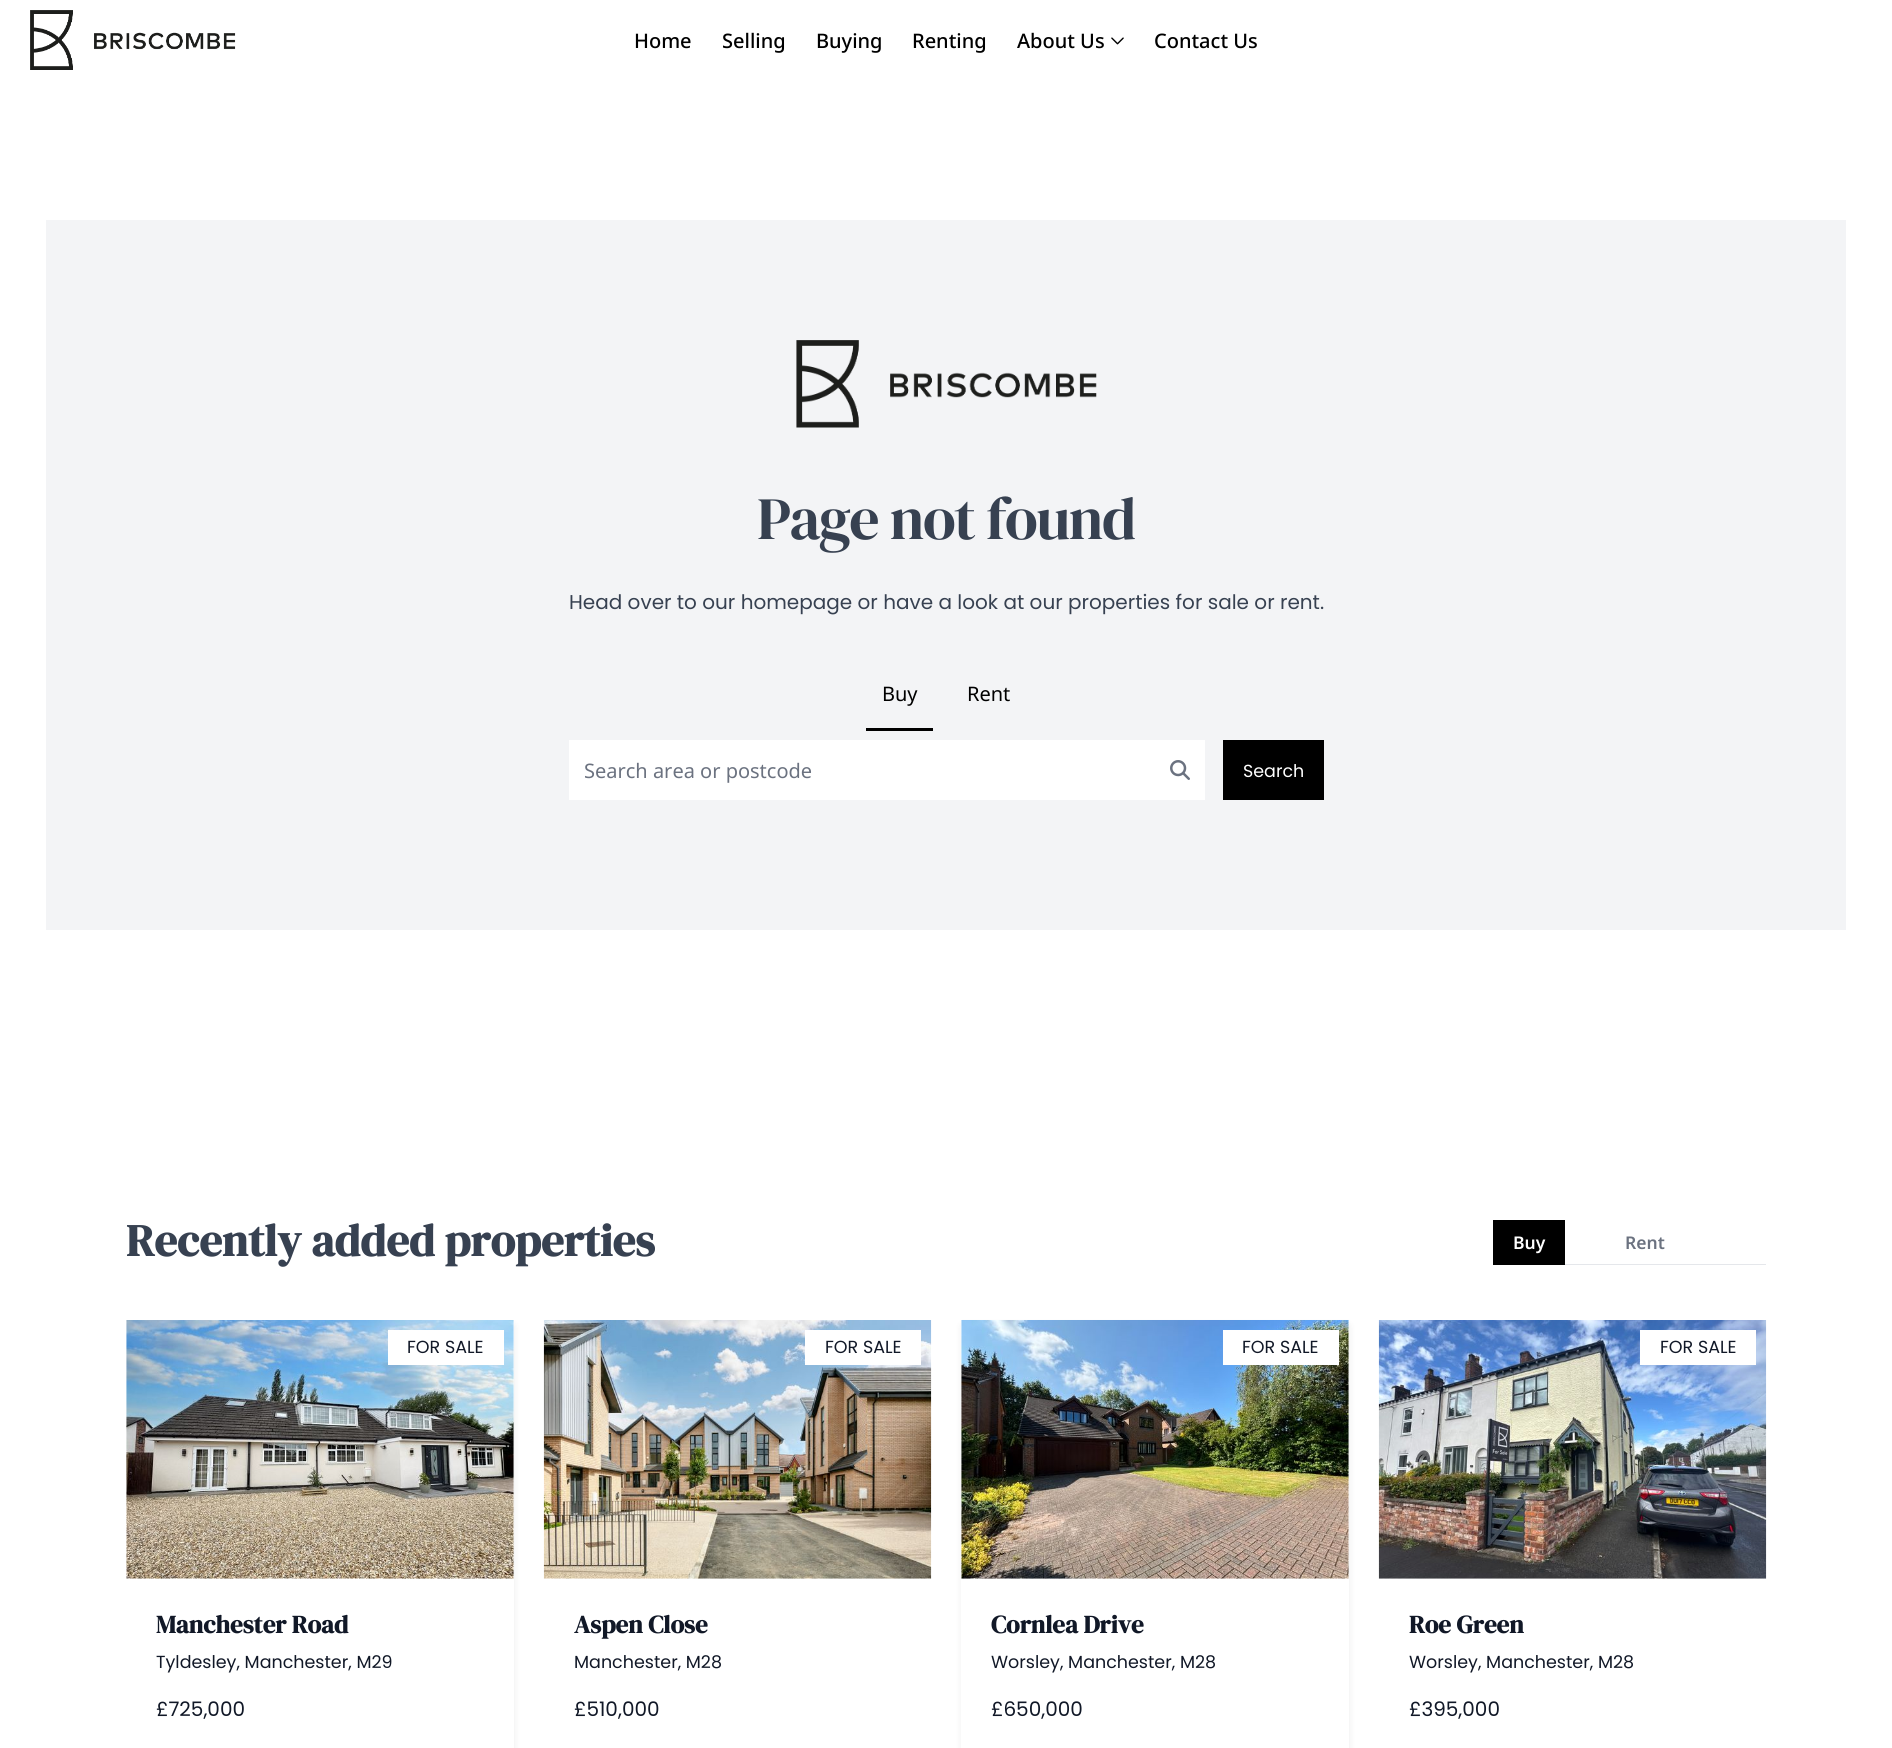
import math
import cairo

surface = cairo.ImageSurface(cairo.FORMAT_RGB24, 1892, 1748)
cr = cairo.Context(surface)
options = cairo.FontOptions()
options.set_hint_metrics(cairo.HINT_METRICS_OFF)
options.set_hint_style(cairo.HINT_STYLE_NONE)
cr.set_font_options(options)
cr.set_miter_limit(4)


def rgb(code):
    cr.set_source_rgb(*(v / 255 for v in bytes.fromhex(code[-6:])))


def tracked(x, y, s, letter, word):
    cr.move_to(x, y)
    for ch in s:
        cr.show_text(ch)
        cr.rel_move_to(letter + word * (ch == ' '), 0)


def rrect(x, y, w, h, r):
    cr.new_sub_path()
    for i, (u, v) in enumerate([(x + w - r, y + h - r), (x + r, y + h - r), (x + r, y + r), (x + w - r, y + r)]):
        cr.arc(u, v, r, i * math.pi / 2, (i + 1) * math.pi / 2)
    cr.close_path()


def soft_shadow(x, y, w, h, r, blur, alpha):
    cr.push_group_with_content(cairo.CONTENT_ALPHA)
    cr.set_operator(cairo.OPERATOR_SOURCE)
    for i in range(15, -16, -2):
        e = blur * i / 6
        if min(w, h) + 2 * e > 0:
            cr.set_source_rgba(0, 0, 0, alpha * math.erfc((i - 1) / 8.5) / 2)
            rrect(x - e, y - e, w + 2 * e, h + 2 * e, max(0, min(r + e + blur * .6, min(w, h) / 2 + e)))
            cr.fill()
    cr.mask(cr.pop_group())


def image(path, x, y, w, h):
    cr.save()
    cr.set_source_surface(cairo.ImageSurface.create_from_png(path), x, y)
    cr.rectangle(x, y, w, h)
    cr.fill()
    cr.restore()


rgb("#ffffff")
cr.paint()
image("img/1.png", 30, 10, 206, 60)
image("img/2.png", 1111, 37, 13, 8)
rgb("#f3f4f6")
cr.rectangle(46, 220, 1800, 710)
cr.fill()
image("img/3.png", 796, 340, 301, 88)
rgb("#000000")
cr.rectangle(866, 728, 67, 3)
cr.fill()
rgb("#ffffff")
cr.rectangle(569, 740, 636, 60)
cr.fill()
image("img/4.png", 1170, 760, 20, 20)
for x, y, w, h, color in [
    (1223, 740, 101, 60, "#000000"),
    (1565, 1264, 201, 1, "#e5e7eb"),
    (1493, 1220, 72, 45, "#000000"),
]:
    rgb(color)
    cr.rectangle(x, y, w, h)
    cr.fill()
cr.save()
cr.rectangle(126, 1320, 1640, 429)
cr.clip()
rgb("#000000")
soft_shadow(128, 1326, 385, 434, 0, 4, 0.1)
cr.restore()
rgb("#ffffff")
cr.rectangle(126, 1321, 388, 427)
cr.fill()
image("img/5.png", 126, 1320, 388, 259)
cr.rectangle(388, 1330, 116, 35)
cr.fill()
image("img/6.png", 543, 1320, 389, 259)
cr.rectangle(805, 1330, 116, 35)
cr.fill()
rgb("#000000")
soft_shadow(963, 1326, 385, 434, 0, 4, 0.1)
rgb("#ffffff")
cr.rectangle(961, 1321, 388, 427)
cr.fill()
image("img/7.png", 961, 1320, 388, 259)
cr.rectangle(1223, 1330, 116, 35)
cr.fill()
image("img/8.png", 1378, 1320, 389, 259)
cr.rectangle(1640, 1330, 116, 35)
cr.fill()
cr.select_font_face("Noto Sans Medium")
cr.set_font_size(20)
rgb("#000000")
for x, y, s in [
    (634, 48, "Home"),
    (722, 48, "Selling"),
    (816, 48, "Buying"),
    (912, 48, "Renting"),
    (1017, 48, "About Us"),
    (1154, 48, "Contact Us"),
]:
    cr.move_to(x, y)
    cr.show_text(s)
cr.select_font_face("DM Serif Display")
cr.set_font_size(60)
rgb("#374151")
tracked(757, 539, "Page not found", -1.5, 0)
cr.select_font_face("Poppins")
cr.set_font_size(20)
cr.move_to(569, 609)
cr.show_text("Head over to our homepage or have a look at our properties for sale or rent.")
cr.select_font_face("Noto Sans")
rgb("#000000")
cr.move_to(882, 701)
cr.show_text("Buy")
cr.move_to(967, 701)
cr.show_text("Rent")
rgb("#6b7280")
cr.move_to(584, 778)
cr.show_text("Search area or postcode")
cr.select_font_face("Poppins")
cr.set_font_size(17.5)
rgb("#ffffff")
cr.move_to(1243, 777)
cr.show_text("Search")
cr.select_font_face("DM Serif Display", cairo.FONT_SLANT_NORMAL, cairo.FONT_WEIGHT_BOLD)
cr.set_font_size(45)
rgb("#374151")
cr.move_to(126, 1256)
cr.show_text("Recently added properties")
cr.select_font_face("Noto Sans SemiBold")
cr.set_font_size(17.5)
rgb("#ffffff")
cr.move_to(1513, 1249)
cr.show_text("Buy")
rgb("#6b7280")
cr.move_to(1625, 1249)
cr.show_text("Rent")
cr.select_font_face("Poppins")
rgb("#111827")
cr.move_to(407, 1353)
cr.show_text("FOR SALE")
cr.select_font_face("DM Serif Display", cairo.FONT_SLANT_NORMAL, cairo.FONT_WEIGHT_BOLD)
cr.set_font_size(25)
cr.move_to(156, 1633)
cr.show_text("Manchester Road")
cr.select_font_face("Poppins")
cr.set_font_size(17.5)
cr.move_to(156, 1668)
cr.show_text("Tyldesley, Manchester, M29")
cr.set_font_size(20)
cr.move_to(156, 1716)
cr.show_text("£725,000")
cr.set_font_size(17.5)
cr.move_to(825, 1353)
cr.show_text("FOR SALE")
cr.select_font_face("DM Serif Display", cairo.FONT_SLANT_NORMAL, cairo.FONT_WEIGHT_BOLD)
cr.set_font_size(25)
cr.move_to(574, 1633)
cr.show_text("Aspen Close")
cr.select_font_face("Poppins")
cr.set_font_size(17.5)
cr.move_to(574, 1668)
cr.show_text("Manchester, M28")
cr.set_font_size(20)
cr.move_to(574, 1716)
cr.show_text("£510,000")
cr.set_font_size(17.5)
cr.move_to(1242, 1353)
cr.show_text("FOR SALE")
cr.select_font_face("DM Serif Display", cairo.FONT_SLANT_NORMAL, cairo.FONT_WEIGHT_BOLD)
cr.set_font_size(25)
cr.move_to(991, 1633)
cr.show_text("Cornlea Drive")
cr.select_font_face("Poppins")
cr.set_font_size(17.5)
cr.move_to(991, 1668)
cr.show_text("Worsley, Manchester, M28")
cr.set_font_size(20)
cr.move_to(991, 1716)
cr.show_text("£650,000")
cr.set_font_size(17.5)
cr.move_to(1660, 1353)
cr.show_text("FOR SALE")
cr.select_font_face("DM Serif Display", cairo.FONT_SLANT_NORMAL, cairo.FONT_WEIGHT_BOLD)
cr.set_font_size(25)
cr.move_to(1409, 1633)
cr.show_text("Roe Green")
cr.select_font_face("Poppins")
cr.set_font_size(17.5)
cr.move_to(1409, 1668)
cr.show_text("Worsley, Manchester, M28")
cr.set_font_size(20)
cr.move_to(1409, 1716)
cr.show_text("£395,000")
surface.write_to_png("page.png")
